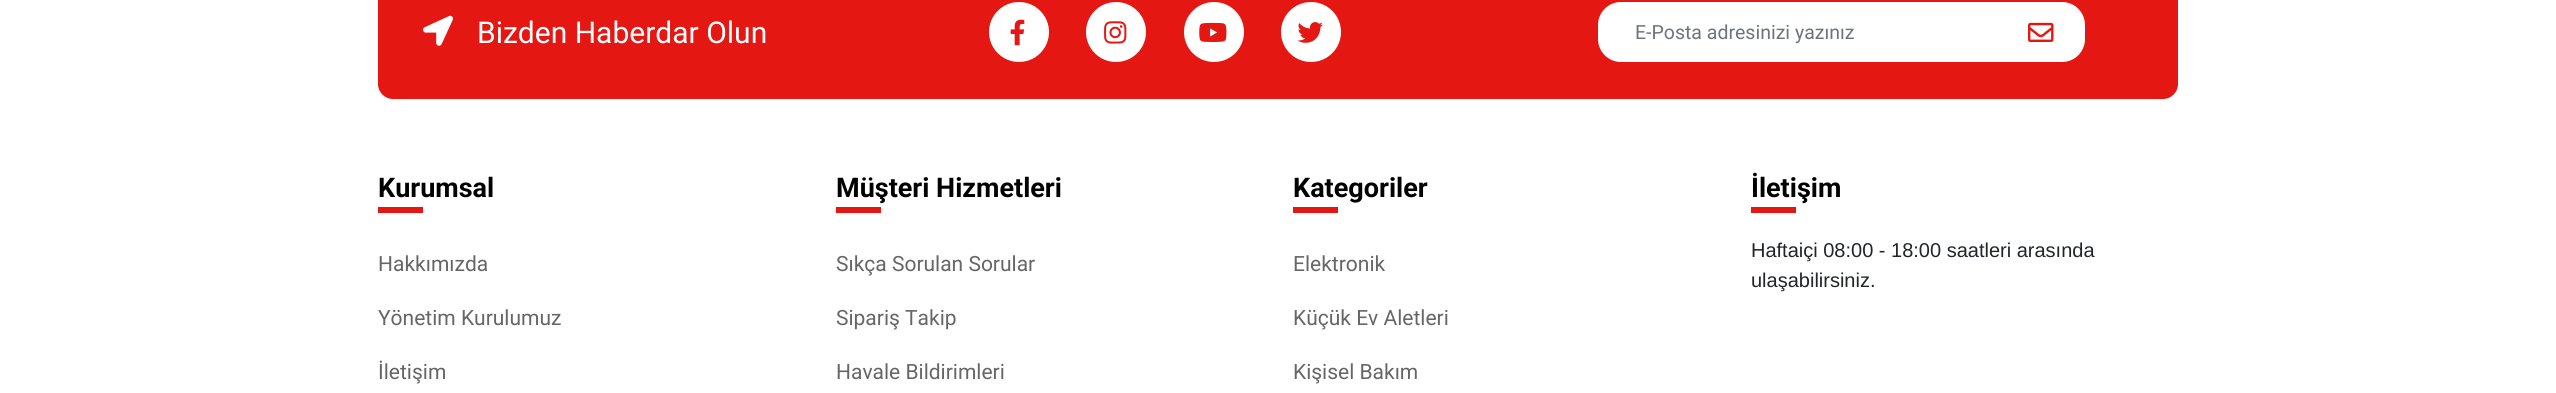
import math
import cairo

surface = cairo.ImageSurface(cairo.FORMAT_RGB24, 2556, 393)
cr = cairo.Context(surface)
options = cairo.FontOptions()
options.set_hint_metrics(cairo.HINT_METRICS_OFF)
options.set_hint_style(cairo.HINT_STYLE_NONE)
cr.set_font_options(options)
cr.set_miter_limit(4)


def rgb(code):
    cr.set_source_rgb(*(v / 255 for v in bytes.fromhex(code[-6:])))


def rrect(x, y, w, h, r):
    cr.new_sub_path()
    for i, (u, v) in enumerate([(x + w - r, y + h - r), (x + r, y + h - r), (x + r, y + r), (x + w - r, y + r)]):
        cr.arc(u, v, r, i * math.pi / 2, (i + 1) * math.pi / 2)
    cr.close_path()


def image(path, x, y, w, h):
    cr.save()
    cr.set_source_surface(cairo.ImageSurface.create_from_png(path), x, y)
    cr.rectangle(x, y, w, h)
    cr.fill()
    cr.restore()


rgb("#ffffff")
cr.paint()
rgb("#e41713")
rrect(378, -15, 1800, 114, 15)
cr.fill()
image("img/1.png", 423, 15, 30, 31)
rgb("#ffffff")
cr.arc(1019, 32, 30, 0, 2 * math.pi)
cr.fill()
image("img/2.png", 1010, 19, 15, 27)
cr.arc(1116, 32, 30, 0, 2 * math.pi)
cr.fill()
image("img/3.png", 1104, 21, 23, 23)
cr.arc(1214, 32, 30, 0, 2 * math.pi)
cr.fill()
image("img/4.png", 1199, 22, 28, 20)
cr.arc(1311, 32, 30, 0, 2 * math.pi)
cr.fill()
image("img/5.png", 1297, 22, 26, 21)
rrect(1598, 2, 487, 60, 23)
cr.fill()
image("img/6.png", 2028, 22, 26, 20)
for x, y, w, h, color in [
    (378, 207, 45, 6, "#e41713"),
    (836, 207, 45, 6, "#e41713"),
    (1293, 207, 45, 6, "#e41713"),
    (1751, 207, 45, 6, "#e41713"),
]:
    rgb(color)
    cr.rectangle(x, y, w, h)
    cr.fill()
cr.select_font_face("Roboto")
cr.set_font_size(30)
rgb("#ffffff")
cr.move_to(477, 43)
cr.show_text("Bizden Haberdar Olun")
cr.set_font_size(19.5)
rgb("#6c757d")
cr.move_to(1635, 39)
cr.show_text("E-Posta adresinizi yazınız")
cr.select_font_face("Roboto", cairo.FONT_SLANT_NORMAL, cairo.FONT_WEIGHT_BOLD)
cr.set_font_size(27)
rgb("#000000")
cr.move_to(378, 197)
cr.show_text("Kurumsal")
cr.select_font_face("Roboto")
cr.set_font_size(21)
rgb("#666666")
for x, y, s in [
    (378, 271, "Hakkımızda"),
    (378, 325, "Yönetim Kurulumuz"),
    (378, 379, "İletişim"),
]:
    cr.move_to(x, y)
    cr.show_text(s)
cr.select_font_face("Roboto", cairo.FONT_SLANT_NORMAL, cairo.FONT_WEIGHT_BOLD)
cr.set_font_size(27)
rgb("#000000")
cr.move_to(836, 197)
cr.show_text("Müşteri Hizmetleri")
cr.select_font_face("Roboto")
cr.set_font_size(21)
rgb("#666666")
for x, y, s in [
    (836, 271, "Sıkça Sorulan Sorular"),
    (836, 325, "Sipariş Takip"),
    (836, 379, "Havale Bildirimleri"),
]:
    cr.move_to(x, y)
    cr.show_text(s)
cr.select_font_face("Roboto", cairo.FONT_SLANT_NORMAL, cairo.FONT_WEIGHT_BOLD)
cr.set_font_size(27)
rgb("#000000")
cr.move_to(1293, 197)
cr.show_text("Kategoriler")
cr.select_font_face("Roboto")
cr.set_font_size(21)
rgb("#666666")
for x, y, s in [
    (1293, 271, "Elektronik"),
    (1293, 325, "Küçük Ev Aletleri"),
    (1293, 379, "Kişisel Bakım"),
]:
    cr.move_to(x, y)
    cr.show_text(s)
cr.select_font_face("Roboto", cairo.FONT_SLANT_NORMAL, cairo.FONT_WEIGHT_BOLD)
cr.set_font_size(27)
rgb("#000000")
cr.move_to(1751, 197)
cr.show_text("İletişim")
cr.select_font_face("Liberation Sans")
cr.set_font_size(20)
rgb("#212529")
cr.move_to(1751, 257)
cr.show_text("Haftaiçi 08:00 - 18:00 saatleri arasında")
cr.move_to(1751, 287)
cr.show_text("ulaşabilirsiniz.")
surface.write_to_png("page.png")
